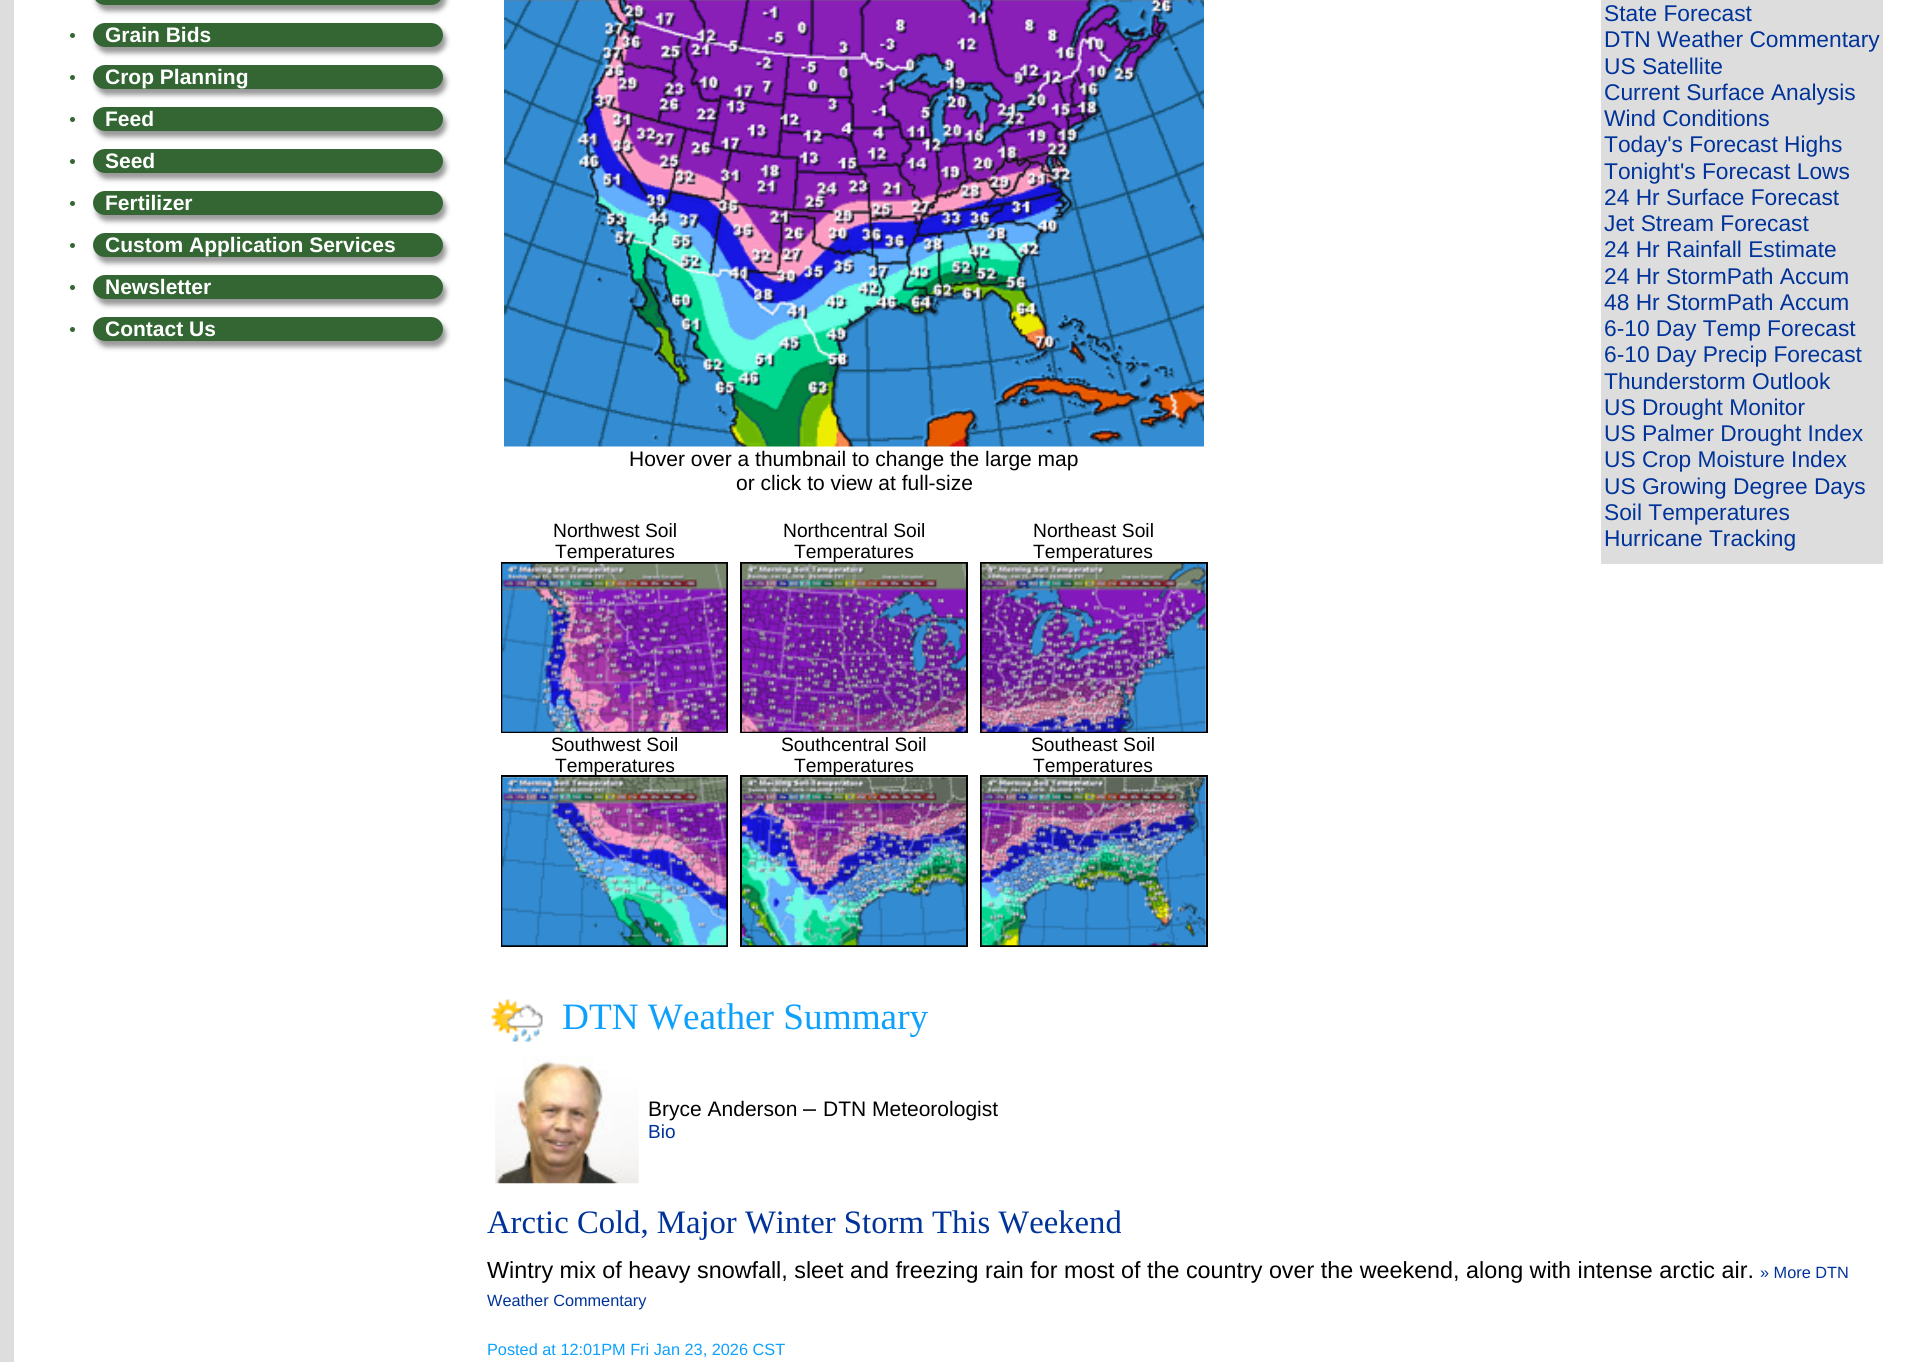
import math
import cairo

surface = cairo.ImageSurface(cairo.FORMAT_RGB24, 1911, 1362)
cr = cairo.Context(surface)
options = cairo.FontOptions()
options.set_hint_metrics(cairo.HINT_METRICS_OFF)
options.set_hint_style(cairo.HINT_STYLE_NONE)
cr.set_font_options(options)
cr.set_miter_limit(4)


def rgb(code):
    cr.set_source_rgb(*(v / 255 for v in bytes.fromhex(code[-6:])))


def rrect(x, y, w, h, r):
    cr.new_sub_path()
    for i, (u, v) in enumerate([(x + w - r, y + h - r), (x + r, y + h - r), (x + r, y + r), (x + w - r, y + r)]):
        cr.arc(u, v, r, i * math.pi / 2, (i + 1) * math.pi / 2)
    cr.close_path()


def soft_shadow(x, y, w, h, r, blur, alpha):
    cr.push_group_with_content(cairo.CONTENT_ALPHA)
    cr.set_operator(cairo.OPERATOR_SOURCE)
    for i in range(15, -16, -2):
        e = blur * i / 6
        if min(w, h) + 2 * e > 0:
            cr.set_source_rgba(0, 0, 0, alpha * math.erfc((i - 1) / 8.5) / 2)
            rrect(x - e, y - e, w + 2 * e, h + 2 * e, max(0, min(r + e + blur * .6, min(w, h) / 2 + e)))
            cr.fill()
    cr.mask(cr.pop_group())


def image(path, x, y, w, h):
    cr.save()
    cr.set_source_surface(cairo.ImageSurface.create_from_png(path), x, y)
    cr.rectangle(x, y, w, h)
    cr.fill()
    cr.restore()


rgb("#dddddd")
cr.paint()
rgb("#ffffff")
cr.rectangle(14, 0, 1897, 1362)
cr.fill()
rgb("#999999")
soft_shadow(96, -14, 350, 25, 12.5, 2.5, 1)
rgb("#336633")
rrect(93, -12, 350, 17, 12)
cr.fill()
rgb("#999999")
soft_shadow(96, 28, 350, 25, 12.5, 2.5, 1)
rgb("#336633")
rrect(93, 23, 350, 24, 12)
cr.fill()
cr.arc(72.5, 35.5, 2.5, 0, 2 * math.pi)
cr.fill()
rgb("#999999")
soft_shadow(96, 70, 350, 25, 12.5, 2.5, 1)
rgb("#336633")
rrect(93, 65, 350, 24, 12)
cr.fill()
cr.arc(72.5, 77.5, 2.5, 0, 2 * math.pi)
cr.fill()
rgb("#999999")
soft_shadow(96, 112, 350, 25, 12.5, 2.5, 1)
rgb("#336633")
rrect(93, 107, 350, 24, 12)
cr.fill()
cr.arc(72.5, 119.5, 2.5, 0, 2 * math.pi)
cr.fill()
rgb("#999999")
soft_shadow(96, 154, 350, 25, 12.5, 2.5, 1)
rgb("#336633")
rrect(93, 149, 350, 24, 12)
cr.fill()
cr.arc(72.5, 161.5, 2.5, 0, 2 * math.pi)
cr.fill()
rgb("#999999")
soft_shadow(96, 196, 350, 25, 12.5, 2.5, 1)
rgb("#336633")
rrect(93, 191, 350, 24, 12)
cr.fill()
cr.arc(72.5, 203.5, 2.5, 0, 2 * math.pi)
cr.fill()
rgb("#999999")
soft_shadow(96, 238, 350, 25, 12.5, 2.5, 1)
rgb("#336633")
rrect(93, 233, 350, 24, 12)
cr.fill()
cr.arc(72.5, 245.5, 2.5, 0, 2 * math.pi)
cr.fill()
rgb("#999999")
soft_shadow(96, 280, 350, 25, 12.5, 2.5, 1)
rgb("#336633")
rrect(93, 275, 350, 24, 12)
cr.fill()
cr.arc(72.5, 287.5, 2.5, 0, 2 * math.pi)
cr.fill()
rgb("#999999")
soft_shadow(96, 322, 350, 25, 12.5, 2.5, 1)
rgb("#336633")
rrect(93, 317, 350, 24, 12)
cr.fill()
cr.arc(72.5, 329.5, 2.5, 0, 2 * math.pi)
cr.fill()
rgb("#dddddd")
cr.rectangle(1601, 0, 282, 564)
cr.fill()
image("img/1.png", 504, 0, 700, 447)
cr.rectangle(502, 563, 225, 169)
rgb("#000000")
cr.stroke()
image("img/2.png", 502, 563, 225, 169)
cr.rectangle(741, 563, 226, 169)
cr.stroke()
image("img/3.png", 742, 563, 224, 169)
cr.rectangle(981, 563, 226, 169)
cr.stroke()
image("img/4.png", 981, 563, 225, 169)
cr.rectangle(502, 776, 225, 170)
cr.stroke()
image("img/5.png", 502, 777, 225, 169)
cr.rectangle(741, 776, 226, 170)
cr.stroke()
image("img/6.png", 742, 777, 224, 169)
cr.rectangle(981, 776, 226, 170)
cr.stroke()
image("img/7.png", 981, 777, 225, 169)
image("img/8.png", 491, 999, 52, 43)
image("img/9.png", 495, 1055, 144, 129)
cr.select_font_face("Liberation Sans", cairo.FONT_SLANT_NORMAL, cairo.FONT_WEIGHT_BOLD)
cr.set_font_size(21)
rgb("#ffffff")
for x, y, s in [
    (105, 42, "Grain Bids"),
    (105, 84, "Crop Planning"),
    (105, 126, "Feed"),
    (105, 168, "Seed"),
    (105, 210, "Fertilizer"),
    (105, 252, "Custom Application Services"),
    (105, 294, "Newsletter"),
    (105, 336, "Contact Us"),
]:
    cr.move_to(x, y)
    cr.show_text(s)
cr.select_font_face("Liberation Sans")
cr.set_font_size(22.75)
rgb("#003399")
for x, y, s in [
    (1604, 21, "State Forecast"),
    (1604, 47, "DTN Weather Commentary"),
    (1604, 74, "US Satellite"),
    (1604, 100, "Current Surface Analysis"),
    (1604, 126, "Wind Conditions"),
    (1604, 152, "Today's Forecast Highs"),
    (1604, 179, "Tonight's Forecast Lows"),
    (1604, 205, "24 Hr Surface Forecast"),
    (1604, 231, "Jet Stream Forecast"),
    (1604, 257, "24 Hr Rainfall Estimate"),
    (1604, 284, "24 Hr StormPath Accum"),
    (1604, 310, "48 Hr StormPath Accum"),
    (1604, 336, "6-10 Day Temp Forecast"),
    (1604, 362, "6-10 Day Precip Forecast"),
    (1604, 389, "Thunderstorm Outlook"),
    (1604, 415, "US Drought Monitor"),
    (1604, 441, "US Palmer Drought Index"),
    (1604, 467, "US Crop Moisture Index"),
    (1604, 494, "US Growing Degree Days"),
    (1604, 520, "Soil Temperatures"),
    (1604, 546, "Hurricane Tracking"),
]:
    cr.move_to(x, y)
    cr.show_text(s)
cr.set_font_size(21)
rgb("#000000")
cr.move_to(629, 466)
cr.show_text("Hover over a thumbnail to change the large map")
cr.move_to(736, 490)
cr.show_text("or click to view at full-size")
cr.set_font_size(19.25)
for x, y, s in [
    (553, 537, "Northwest Soil"),
    (555, 558, "Temperatures"),
    (783, 537, "Northcentral Soil"),
    (794, 558, "Temperatures"),
    (1033, 537, "Northeast Soil"),
    (1033, 558, "Temperatures"),
    (551, 751, "Southwest Soil"),
    (555, 772, "Temperatures"),
    (781, 751, "Southcentral Soil"),
    (794, 772, "Temperatures"),
    (1031, 751, "Southeast Soil"),
    (1033, 772, "Temperatures"),
]:
    cr.move_to(x, y)
    cr.show_text(s)
cr.select_font_face("Liberation Serif")
cr.set_font_size(37.25)
rgb("#0ea0fd")
cr.move_to(562, 1029)
cr.show_text("DTN Weather Summary")
cr.select_font_face("Liberation Sans")
cr.set_font_size(21)
rgb("#000000")
cr.move_to(648, 1116)
cr.show_text("Bryce Anderson")
cr.set_font_size(23.33)
cr.move_to(803, 1116)
cr.show_text("–")
cr.set_font_size(21)
cr.move_to(823, 1116)
cr.show_text("DTN Meteorologist")
cr.set_font_size(19)
rgb("#003399")
cr.move_to(648, 1138)
cr.show_text("Bio")
cr.select_font_face("Liberation Serif")
cr.set_font_size(32.7)
cr.move_to(487, 1233)
cr.show_text("Arctic Cold, Major Winter Storm This Weekend")
cr.select_font_face("Liberation Sans")
cr.set_font_size(23.33)
rgb("#000000")
cr.move_to(487, 1278)
cr.show_text("Wintry mix of heavy snowfall, sleet and freezing rain for most of the country over the weekend, along with intense arctic air.")
cr.set_font_size(16.3)
rgb("#003399")
cr.move_to(1760, 1278)
cr.show_text("» More DTN")
cr.move_to(487, 1306)
cr.show_text("Weather Commentary")
rgb("#0ea0fd")
cr.move_to(487, 1355)
cr.show_text("Posted at 12:01PM Fri Jan 23, 2026 CST")
surface.write_to_png("page.png")
